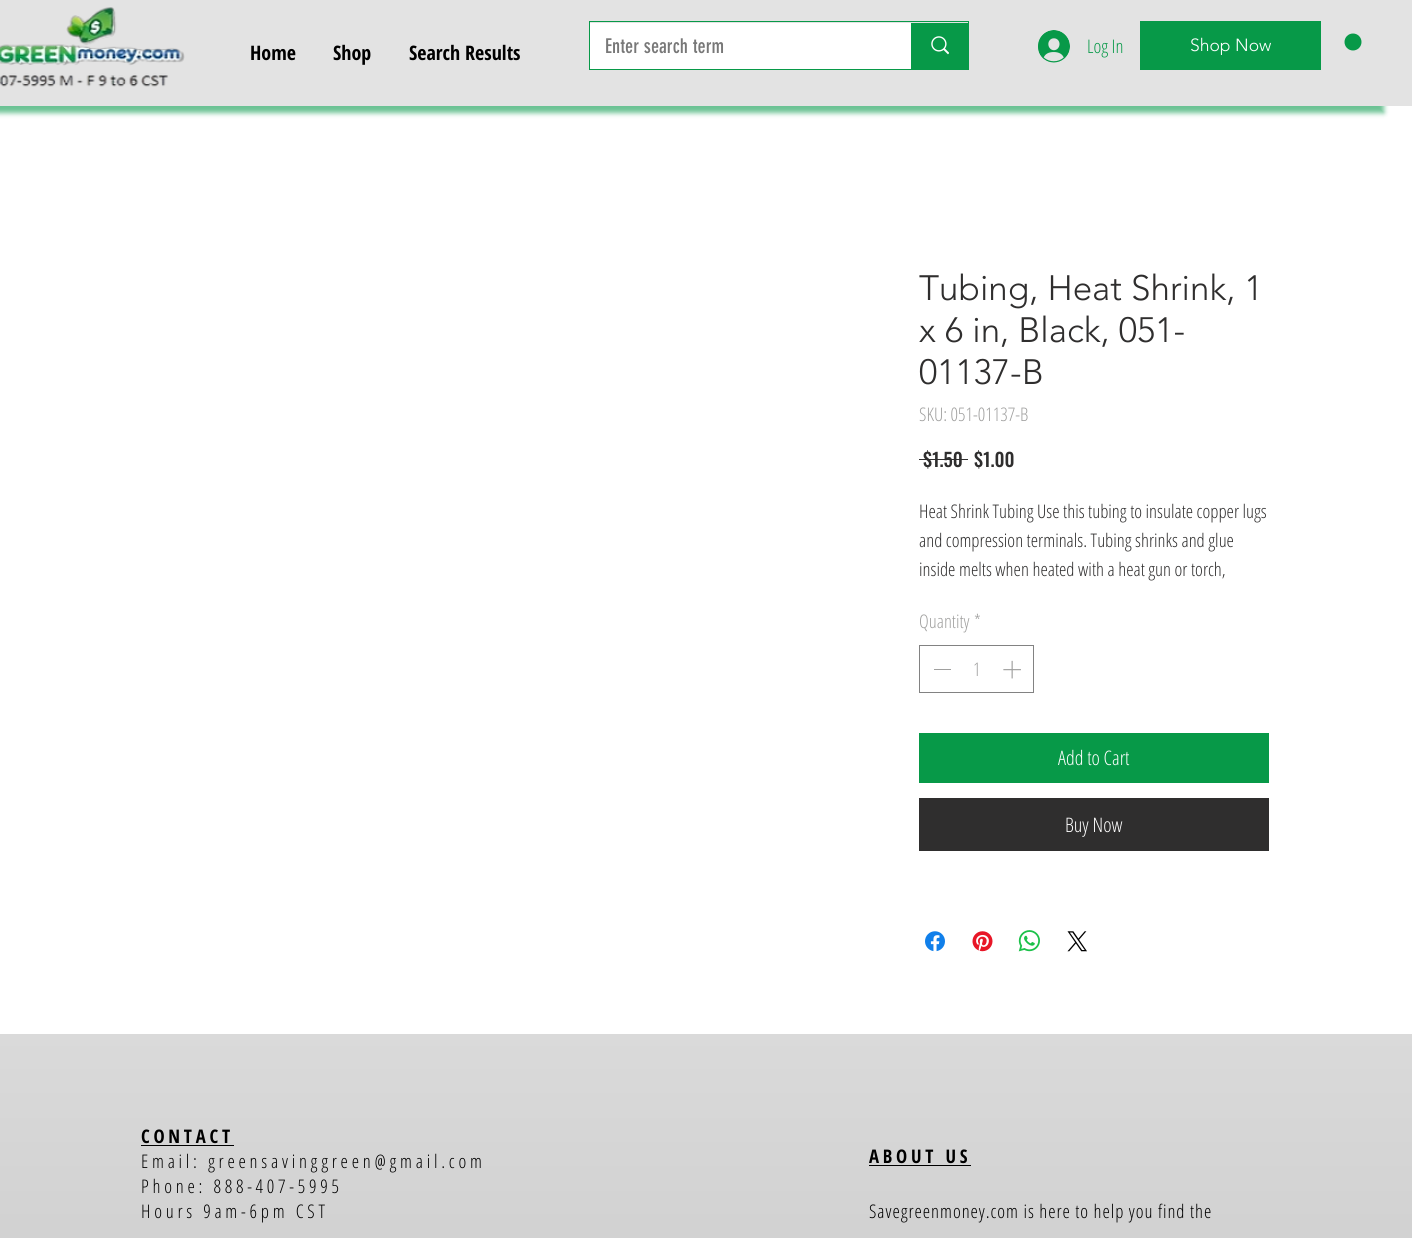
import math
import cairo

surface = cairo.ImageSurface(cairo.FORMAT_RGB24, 1412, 1238)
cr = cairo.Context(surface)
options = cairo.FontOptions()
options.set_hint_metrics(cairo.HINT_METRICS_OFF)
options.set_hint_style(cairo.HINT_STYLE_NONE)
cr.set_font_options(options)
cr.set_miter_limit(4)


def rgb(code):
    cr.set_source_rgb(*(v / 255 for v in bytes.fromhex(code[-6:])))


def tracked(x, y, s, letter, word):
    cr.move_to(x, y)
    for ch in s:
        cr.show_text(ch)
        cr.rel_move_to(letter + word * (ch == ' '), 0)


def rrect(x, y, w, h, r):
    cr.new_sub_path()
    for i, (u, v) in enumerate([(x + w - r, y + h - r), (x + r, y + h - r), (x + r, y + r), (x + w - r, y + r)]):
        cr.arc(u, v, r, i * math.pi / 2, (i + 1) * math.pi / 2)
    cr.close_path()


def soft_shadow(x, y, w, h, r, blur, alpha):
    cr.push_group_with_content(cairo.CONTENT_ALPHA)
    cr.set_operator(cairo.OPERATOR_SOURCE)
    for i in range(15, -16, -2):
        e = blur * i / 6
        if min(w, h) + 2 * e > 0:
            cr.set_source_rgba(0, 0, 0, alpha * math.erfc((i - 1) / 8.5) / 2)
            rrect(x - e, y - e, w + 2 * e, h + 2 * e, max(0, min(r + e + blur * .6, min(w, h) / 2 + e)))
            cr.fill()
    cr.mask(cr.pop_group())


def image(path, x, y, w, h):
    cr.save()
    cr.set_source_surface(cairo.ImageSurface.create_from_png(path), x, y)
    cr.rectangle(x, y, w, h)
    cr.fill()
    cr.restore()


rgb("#ffffff")
cr.paint()
rgb("#099a4c")
soft_shadow(-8, 6, 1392, 107, 0, 2.5, 0.6)
rgb("#e3e3e3")
cr.rectangle(0, 0, 1412, 106)
cr.fill()
image("img/1.png", 0, 7, 185, 80)
cr.rectangle(589.5, 21.5, 379, 48)
rgb("#079948")
cr.set_line_width(1)
cr.stroke()
rgb("#ffffff")
cr.rectangle(590, 23, 321, 46)
cr.fill()
rgb("#079948")
cr.rectangle(911, 23, 57, 46)
cr.fill()
image("img/2.png", 931, 36, 18, 19)
image("img/3.png", 1038, 30, 32, 33)
cr.rectangle(1140, 21, 181, 49)
cr.fill()
cr.arc(1353, 42, 8.5, 0, 2 * math.pi)
cr.fill()
rgb("#2f2e2e")
cr.rectangle(919, 459, 49, 1)
cr.fill()
cr.rectangle(919.5, 645.5, 114, 47)
rgb("#828282")
cr.stroke()
rgb("#a0a09f")
cr.rectangle(934, 669, 17, 1)
cr.fill()
image("img/4.png", 1003, 660, 18, 19)
rgb("#079948")
cr.rectangle(919, 733, 350, 50)
cr.fill()
rgb("#2f2e2e")
cr.rectangle(919, 798, 350, 53)
cr.fill()
image("img/5.png", 925, 931, 20, 21)
image("img/6.png", 972, 931, 21, 21)
image("img/7.png", 1018, 930, 22, 22)
image("img/8.png", 1067, 931, 20, 21)
rgb("#cdcdcd")
cr.rectangle(0, 1034, 1412, 204)
cr.fill()
image("img/9.png", 0, 1034, 1412, 204)
rgb("#000000")
cr.rectangle(141, 1145, 93, 1)
cr.fill()
cr.rectangle(869, 1165, 102, 1)
cr.fill()
cr.select_font_face("Open Sans Condensed", cairo.FONT_SLANT_NORMAL, cairo.FONT_WEIGHT_BOLD)
cr.set_font_size(20)
for x, y, s in [
    (250, 60, "Home"),
    (333, 60, "Shop"),
    (409, 60, "Search Results"),
]:
    cr.move_to(x, y)
    cr.show_text(s)
cr.select_font_face("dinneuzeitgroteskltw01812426")
rgb("#787878")
cr.move_to(605, 53)
cr.show_text("Enter search term")
cr.select_font_face("Open Sans Condensed Light")
cr.set_font_size(18.75)
rgb("#079948")
cr.move_to(1087, 53)
cr.show_text("Log In")
cr.select_font_face("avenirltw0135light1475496 Light")
cr.set_font_size(17.5)
rgb("#ffffff")
cr.move_to(1190, 51)
cr.show_text("Shop Now")
cr.set_font_size(35)
rgb("#2f2e2e")
for x, y, s in [
    (919, 300, "Tubing, Heat Shrink, 1"),
    (919, 342, "x 6 in, Black, 051-"),
    (919, 384, "01137-B"),
]:
    cr.move_to(x, y)
    cr.show_text(s)
cr.select_font_face("Open Sans Condensed Light")
cr.set_font_size(18.75)
rgb("#a0a09f")
cr.move_to(919, 421)
cr.show_text("SKU: 051-01137-B")
cr.select_font_face("Oswald Medium")
rgb("#2f2e2e")
cr.move_to(923, 467)
cr.show_text("$1.50")
cr.move_to(974, 467)
cr.show_text("$1.00")
cr.select_font_face("Open Sans Condensed Light")
for x, y, s in [
    (919, 518, "Heat Shrink Tubing Use this tubing to insulate copper lugs"),
    (919, 547, "and compression terminals. Tubing shrinks and glue"),
    (919, 576, "inside melts when heated with a heat gun or torch,"),
]:
    cr.move_to(x, y)
    cr.show_text(s)
rgb("#a0a09f")
for x, y, s in [
    (919, 628, "Quantity"),
    (974, 628, "*"),
    (973, 676, "1"),
]:
    cr.move_to(x, y)
    cr.show_text(s)
cr.set_font_size(20)
rgb("#ffffff")
cr.move_to(1058, 765)
cr.show_text("Add to Cart")
cr.move_to(1065, 832)
cr.show_text("Buy Now")
cr.select_font_face("Open Sans Condensed", cairo.FONT_SLANT_NORMAL, cairo.FONT_WEIGHT_BOLD)
cr.set_font_size(18.75)
rgb("#000000")
tracked(141, 1143, "CONTACT", 3.75, 0)
cr.select_font_face("Open Sans Condensed Light")
for x, y, s in [
    (141, 1168, "Email: greensavinggreen@gmail.com"),
    (141, 1193, "Phone: 888-407-5995"),
    (141, 1218, "Hours 9am-6pm CST"),
]:
    tracked(x, y, s, 3.75, 0)
cr.select_font_face("Open Sans Condensed", cairo.FONT_SLANT_NORMAL, cairo.FONT_WEIGHT_BOLD)
tracked(869, 1163, "ABOUT US", 3.75, 0)
cr.select_font_face("Open Sans Condensed Light")
tracked(869, 1218, "Savegreenmoney.com is here to help you find the", 0.95, 0)
surface.write_to_png("page.png")
